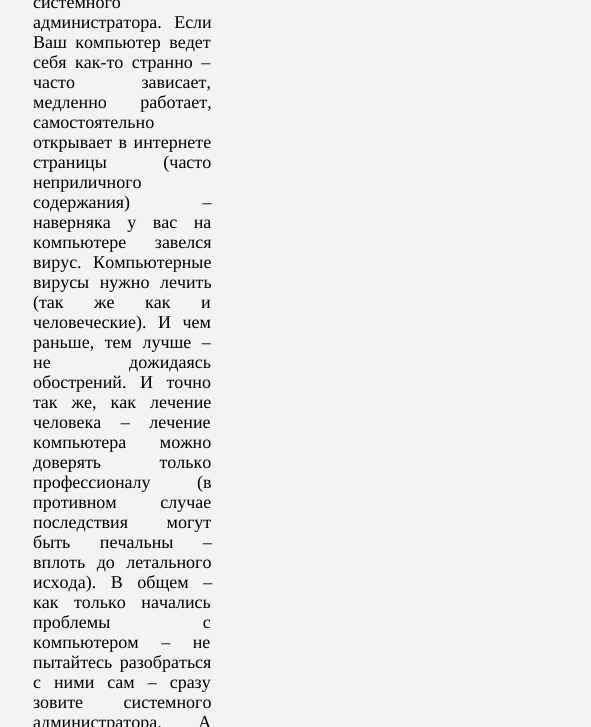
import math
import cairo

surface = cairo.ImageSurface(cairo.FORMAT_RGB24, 591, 727)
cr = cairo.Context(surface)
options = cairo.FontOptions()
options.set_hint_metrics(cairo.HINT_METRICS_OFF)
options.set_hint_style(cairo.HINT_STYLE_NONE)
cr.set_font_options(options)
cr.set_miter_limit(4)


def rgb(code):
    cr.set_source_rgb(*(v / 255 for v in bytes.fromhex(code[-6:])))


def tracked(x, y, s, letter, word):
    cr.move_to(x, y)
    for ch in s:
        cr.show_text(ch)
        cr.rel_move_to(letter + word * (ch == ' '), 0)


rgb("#f3f3f3")
cr.paint()
cr.select_font_face("Liberation Serif")
cr.set_font_size(18)
rgb("#000000")
cr.move_to(33, 8)
cr.show_text("системного")
tracked(33, 28, "администратора. Если", 0, 8)
tracked(33, 48, "Ваш компьютер ведет", 0, 4)
tracked(33, 68, "себя как-то странно –", 0, 4)
tracked(33, 88, "часто зависает,", 0, 62)
tracked(33, 108, "медленно работает,", 0, 29)
cr.move_to(33, 128)
cr.show_text("самостоятельно")
tracked(33, 148, "открывает в интернете", 0, 2)
tracked(33, 168, "страницы (часто", 0, 52)
cr.move_to(33, 188)
cr.show_text("неприличного")
tracked(33, 208, "содержания) –", 0, 68)
tracked(33, 228, "наверняка у вас на", 0, 12)
tracked(33, 248, "компьютере завелся", 0, 24)
tracked(33, 268, "вирус. Компьютерные", 0, 7)
tracked(33, 288, "вирусы нужно лечить", 0, 6)
tracked(33, 308, "(так же как и", 0, 26)
tracked(33, 328, "человеческие). И чем", 0, 7)
tracked(33, 348, "раньше, тем лучше –", 0, 6)
tracked(33, 368, "не дожидаясь", 0, 74)
tracked(33, 388, "обострений. И точно", 0, 9)
tracked(33, 408, "так же, как лечение", 0, 9.5)
tracked(33, 428, "человека – лечение", 0, 15)
tracked(33, 448, "компьютера можно", 0, 29)
tracked(33, 468, "доверять только", 0, 54)
tracked(33, 488, "профессионалу (в", 0, 42)
tracked(33, 508, "противном случае", 0, 39)
tracked(33, 528, "последствия могут", 0, 34)
tracked(33, 548, "быть печальны –", 0, 25)
tracked(33, 568, "вплоть до летального", 0, 7)
tracked(33, 588, "исхода). В общем –", 0, 10)
tracked(33, 608, "как только начались", 0, 11)
tracked(33, 628, "проблемы с", 0, 88)
tracked(33, 648, "компьютером – не", 0, 18)
tracked(33, 668, "пытайтесь разобраться", 0, 3)
tracked(33, 688, "с ними сам – сразу", 0, 8.5)
tracked(33, 708, "зовите системного", 0, 36)
tracked(33, 728, "администратора. А", 0, 32)
surface.write_to_png("page.png")
